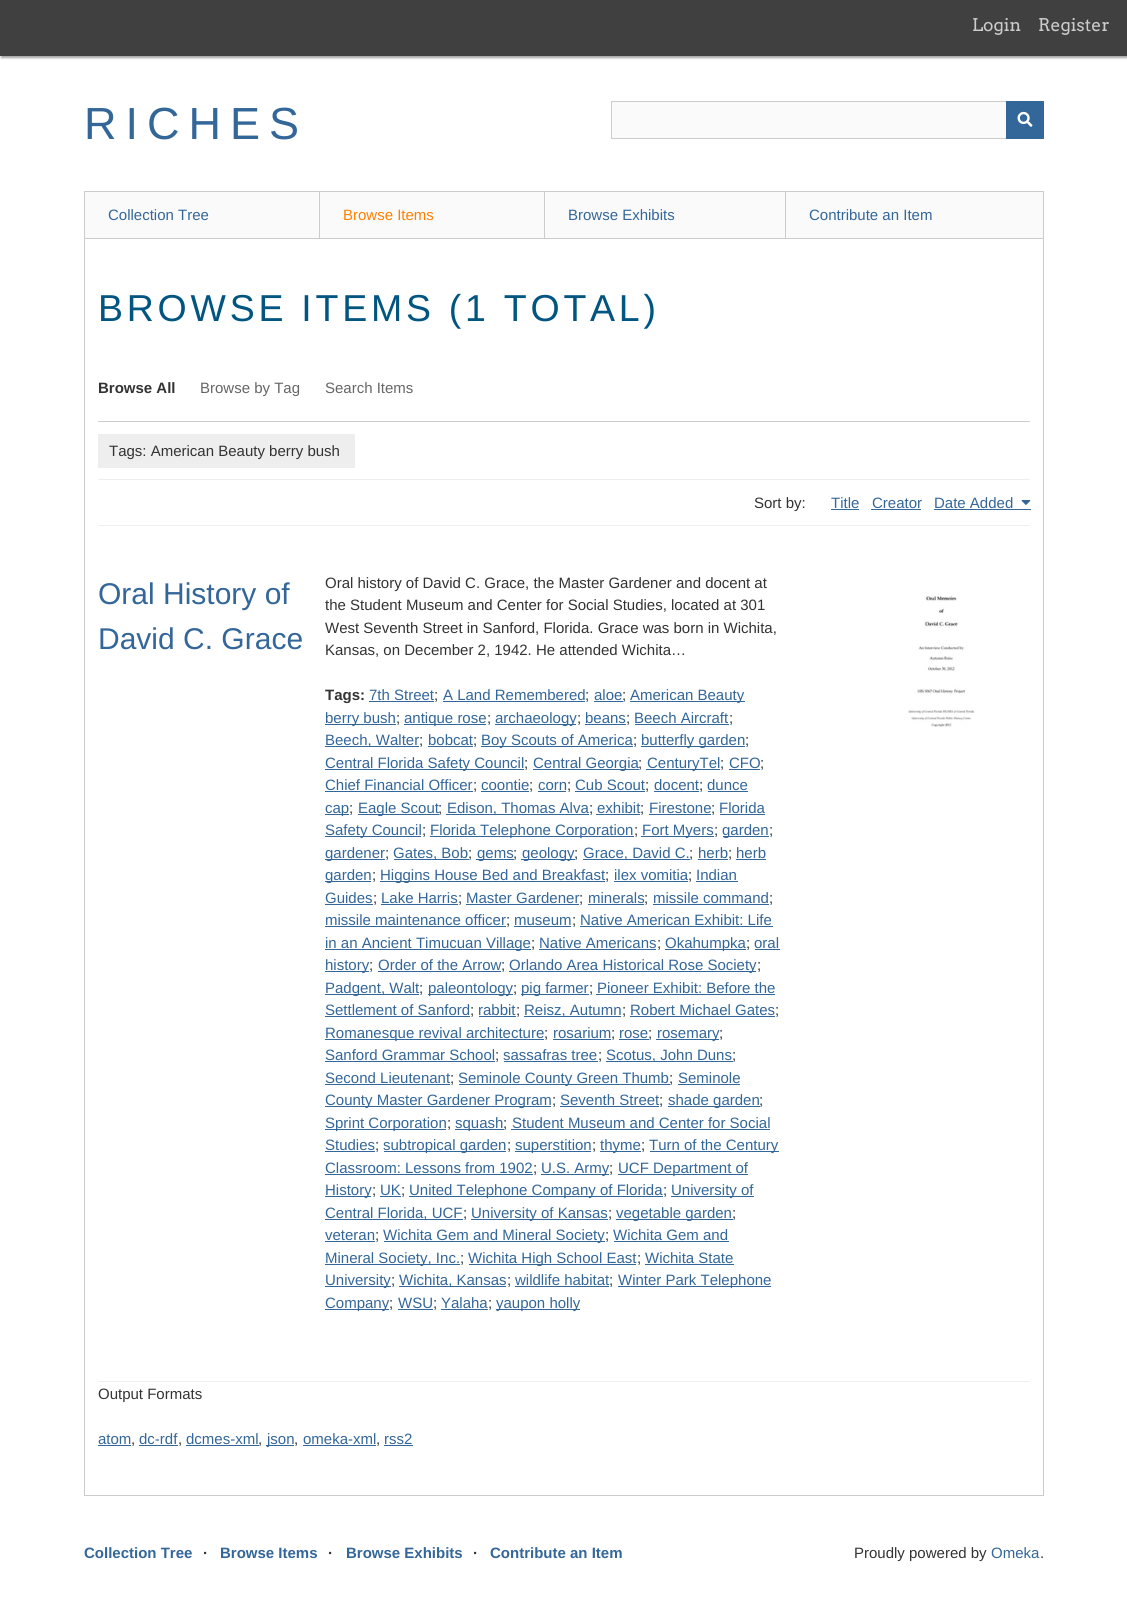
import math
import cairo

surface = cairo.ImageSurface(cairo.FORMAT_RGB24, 1127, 1597)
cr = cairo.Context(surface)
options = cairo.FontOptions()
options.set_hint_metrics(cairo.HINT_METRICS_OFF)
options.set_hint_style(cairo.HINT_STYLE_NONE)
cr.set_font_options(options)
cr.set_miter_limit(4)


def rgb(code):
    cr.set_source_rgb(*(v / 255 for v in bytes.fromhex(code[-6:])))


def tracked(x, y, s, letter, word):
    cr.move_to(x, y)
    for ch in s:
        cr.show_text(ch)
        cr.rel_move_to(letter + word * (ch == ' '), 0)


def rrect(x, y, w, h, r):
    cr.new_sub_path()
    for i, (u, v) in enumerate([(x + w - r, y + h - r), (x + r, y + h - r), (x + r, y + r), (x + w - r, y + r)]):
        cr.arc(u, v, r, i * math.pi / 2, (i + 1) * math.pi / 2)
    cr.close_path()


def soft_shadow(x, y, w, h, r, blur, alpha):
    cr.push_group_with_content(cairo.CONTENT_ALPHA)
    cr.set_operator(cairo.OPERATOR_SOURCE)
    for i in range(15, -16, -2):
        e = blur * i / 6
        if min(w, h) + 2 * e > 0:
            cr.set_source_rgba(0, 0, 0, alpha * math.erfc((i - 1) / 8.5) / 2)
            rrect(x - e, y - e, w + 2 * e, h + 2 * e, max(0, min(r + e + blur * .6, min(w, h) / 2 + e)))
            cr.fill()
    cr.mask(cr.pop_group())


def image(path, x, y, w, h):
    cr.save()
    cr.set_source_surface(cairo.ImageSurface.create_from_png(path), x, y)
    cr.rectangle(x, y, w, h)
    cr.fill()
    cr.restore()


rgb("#ffffff")
cr.paint()
rgb("#000000")
soft_shadow(1, 1, 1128, 57, 0, 1, 0.35)
rgb("#404040")
cr.rectangle(0, 0, 1127, 56)
cr.fill()
rgb("#fafafa")
cr.rectangle(612, 102, 394, 36)
cr.fill()
cr.rectangle(611.5, 101.5, 432, 37)
rgb("#cccccc")
cr.set_line_width(1)
cr.stroke()
rgb("#336699")
cr.rectangle(1006, 101, 38, 38)
cr.fill()
image("img/1.png", 1017, 111, 16, 16)
for x, y, w, h, color in [
    (1043, 191, 1, 47, "#cccccc"),
    (85, 192, 234, 46, "#fafafa"),
    (84, 191, 235, 1, "#cccccc"),
    (84, 191, 1, 47, "#cccccc"),
    (320, 192, 224, 46, "#fafafa"),
    (319, 191, 724, 1, "#cccccc"),
    (319, 191, 1, 47, "#cccccc"),
    (545, 192, 240, 46, "#fafafa"),
    (544, 191, 1, 47, "#cccccc"),
    (786, 192, 257, 46, "#fafafa"),
    (785, 191, 1, 47, "#cccccc"),
]:
    rgb(color)
    cr.rectangle(x, y, w, h)
    cr.fill()
cr.rectangle(84.5, 238.5, 959, 1257)
cr.stroke()
for x, y, w, h, color in [
    (98, 421, 932, 1, "#cccccc"),
    (98, 479, 932, 1, "#eeeeee"),
    (98, 434, 257, 34, "#eeeeee"),
    (831, 509, 28, 1, "#336699"),
    (871, 509, 50, 1, "#336699"),
    (934, 509, 97, 1, "#336699"),
]:
    rgb(color)
    cr.rectangle(x, y, w, h)
    cr.fill()
image("img/2.png", 1021, 500, 10, 5)
rgb("#eeeeee")
cr.rectangle(98, 525, 932, 1)
cr.fill()
cr.rectangle(98, 1381, 932, 1)
cr.fill()
image("img/3.png", 908, 596, 67, 131)
for x, y, w, h, color in [
    (369, 701, 65, 1, "#336699"),
    (443, 701, 142, 1, "#336699"),
    (594, 701, 29, 1, "#336699"),
    (630, 701, 115, 1, "#336699"),
    (325, 724, 71, 1, "#336699"),
    (404, 724, 82, 1, "#336699"),
    (495, 724, 81, 1, "#336699"),
    (585, 724, 41, 1, "#336699"),
    (635, 724, 94, 1, "#336699"),
    (325, 746, 94, 1, "#336699"),
    (428, 746, 45, 1, "#336699"),
    (481, 746, 152, 1, "#336699"),
    (641, 746, 104, 1, "#336699"),
    (325, 769, 199, 1, "#336699"),
    (533, 769, 106, 1, "#336699"),
    (646, 769, 74, 1, "#336699"),
    (729, 769, 31, 1, "#336699"),
    (325, 791, 148, 1, "#336699"),
    (481, 791, 48, 1, "#336699"),
    (538, 791, 28, 1, "#336699"),
    (575, 791, 70, 1, "#336699"),
    (654, 791, 45, 1, "#336699"),
    (708, 791, 40, 1, "#336699"),
    (325, 814, 24, 1, "#336699"),
    (358, 814, 81, 1, "#336699"),
    (446, 814, 143, 1, "#336699"),
    (596, 814, 44, 1, "#336699"),
    (649, 814, 62, 1, "#336699"),
    (720, 814, 45, 1, "#336699"),
    (325, 836, 96, 1, "#336699"),
    (430, 836, 204, 1, "#336699"),
    (641, 836, 73, 1, "#336699"),
    (723, 836, 46, 1, "#336699"),
    (325, 859, 60, 1, "#336699"),
    (394, 859, 75, 1, "#336699"),
    (476, 859, 38, 1, "#336699"),
    (521, 859, 54, 1, "#336699"),
    (583, 859, 107, 1, "#336699"),
    (698, 859, 30, 1, "#336699"),
    (736, 859, 30, 1, "#336699"),
    (325, 881, 46, 1, "#336699"),
    (380, 881, 225, 1, "#336699"),
    (614, 881, 74, 1, "#336699"),
    (696, 881, 42, 1, "#336699"),
    (325, 904, 48, 1, "#336699"),
    (381, 904, 77, 1, "#336699"),
    (466, 904, 113, 1, "#336699"),
    (588, 904, 56, 1, "#336699"),
    (653, 904, 116, 1, "#336699"),
    (325, 926, 181, 1, "#336699"),
    (514, 926, 57, 1, "#336699"),
    (580, 926, 193, 1, "#336699"),
    (325, 949, 206, 1, "#336699"),
    (539, 949, 117, 1, "#336699"),
    (665, 949, 81, 1, "#336699"),
    (755, 949, 25, 1, "#336699"),
    (325, 971, 44, 1, "#336699"),
    (378, 971, 123, 1, "#336699"),
    (509, 971, 247, 1, "#336699"),
    (325, 994, 94, 1, "#336699"),
    (428, 994, 85, 1, "#336699"),
    (521, 994, 68, 1, "#336699"),
    (596, 994, 179, 1, "#336699"),
    (325, 1016, 145, 1, "#336699"),
    (479, 1016, 37, 1, "#336699"),
    (524, 1016, 97, 1, "#336699"),
    (630, 1016, 145, 1, "#336699"),
    (325, 1039, 219, 1, "#336699"),
    (553, 1039, 58, 1, "#336699"),
    (619, 1039, 30, 1, "#336699"),
    (656, 1039, 63, 1, "#336699"),
    (325, 1061, 170, 1, "#336699"),
    (504, 1061, 94, 1, "#336699"),
    (606, 1061, 127, 1, "#336699"),
    (325, 1084, 125, 1, "#336699"),
    (459, 1084, 211, 1, "#336699"),
    (678, 1084, 62, 1, "#336699"),
    (325, 1106, 226, 1, "#336699"),
    (560, 1106, 99, 1, "#336699"),
    (668, 1106, 92, 1, "#336699"),
    (325, 1129, 121, 1, "#336699"),
    (455, 1129, 49, 1, "#336699"),
    (511, 1129, 259, 1, "#336699"),
    (325, 1151, 50, 1, "#336699"),
    (384, 1151, 122, 1, "#336699"),
    (515, 1151, 76, 1, "#336699"),
    (600, 1151, 41, 1, "#336699"),
    (650, 1151, 129, 1, "#336699"),
    (325, 1174, 208, 1, "#336699"),
    (541, 1174, 68, 1, "#336699"),
    (618, 1174, 130, 1, "#336699"),
    (325, 1196, 46, 1, "#336699"),
    (380, 1196, 21, 1, "#336699"),
    (409, 1196, 254, 1, "#336699"),
    (671, 1196, 83, 1, "#336699"),
    (325, 1219, 138, 1, "#336699"),
    (471, 1219, 137, 1, "#336699"),
    (616, 1219, 117, 1, "#336699"),
    (325, 1241, 50, 1, "#336699"),
    (384, 1241, 221, 1, "#336699"),
    (614, 1241, 115, 1, "#336699"),
    (325, 1264, 135, 1, "#336699"),
    (469, 1264, 167, 1, "#336699"),
    (645, 1264, 89, 1, "#336699"),
    (325, 1286, 66, 1, "#336699"),
    (399, 1286, 107, 1, "#336699"),
    (515, 1286, 94, 1, "#336699"),
    (618, 1286, 153, 1, "#336699"),
    (325, 1309, 64, 1, "#336699"),
    (398, 1309, 35, 1, "#336699"),
    (441, 1309, 47, 1, "#336699"),
    (496, 1309, 84, 1, "#336699"),
    (98, 1445, 33, 1, "#336699"),
    (139, 1445, 39, 1, "#336699"),
    (186, 1445, 73, 1, "#336699"),
    (266, 1445, 28, 1, "#336699"),
    (303, 1445, 73, 1, "#336699"),
    (384, 1445, 29, 1, "#336699"),
]:
    rgb(color)
    cr.rectangle(x, y, w, h)
    cr.fill()
cr.select_font_face("Arvo")
cr.set_font_size(17.5)
rgb("#cccccc")
cr.move_to(972, 31)
cr.show_text("Login")
cr.move_to(1038, 31)
cr.show_text("Register")
cr.select_font_face("Liberation Sans")
cr.set_font_size(45)
rgb("#336699")
tracked(84, 139, "RICHES", 9, 0)
cr.set_font_size(15)
cr.move_to(108, 220)
cr.show_text("Collection Tree")
rgb("#ff8000")
cr.move_to(343, 220)
cr.show_text("Browse Items")
rgb("#336699")
cr.move_to(568, 220)
cr.show_text("Browse Exhibits")
cr.move_to(809, 220)
cr.show_text("Contribute an Item")
cr.set_font_size(37.5)
rgb("#015581")
tracked(98, 321, "BROWSE ITEMS (1 TOTAL)", 3.75, 0)
cr.select_font_face("Liberation Sans", cairo.FONT_SLANT_NORMAL, cairo.FONT_WEIGHT_BOLD)
cr.set_font_size(15)
rgb("#333333")
cr.move_to(98, 393)
cr.show_text("Browse All")
cr.select_font_face("Liberation Sans")
rgb("#666666")
cr.move_to(200, 393)
cr.show_text("Browse by Tag")
cr.move_to(325, 393)
cr.show_text("Search Items")
rgb("#333333")
cr.move_to(109, 456)
cr.show_text("Tags: American Beauty berry bush")
cr.move_to(754, 508)
cr.show_text("Sort by:")
rgb("#336699")
for x, y, s in [
    (831, 508, "Title"),
    (872, 508, "Creator"),
    (934, 508, "Date Added"),
]:
    cr.move_to(x, y)
    cr.show_text(s)
cr.set_font_size(30)
cr.move_to(98, 604)
cr.show_text("Oral History of")
cr.move_to(98, 649)
cr.show_text("David C. Grace")
cr.set_font_size(15)
rgb("#333333")
for x, y, s in [
    (325, 588, "Oral history of David C. Grace, the Master Gardener and docent at"),
    (325, 610, "the Student Museum and Center for Social Studies, located at 301"),
    (325, 633, "West Seventh Street in Sanford, Florida. Grace was born in Wichita,"),
    (325, 655, "Kansas, on December 2, 1942. He attended Wichita…"),
]:
    cr.move_to(x, y)
    cr.show_text(s)
cr.select_font_face("Liberation Sans", cairo.FONT_SLANT_NORMAL, cairo.FONT_WEIGHT_BOLD)
cr.move_to(325, 700)
cr.show_text("Tags:")
cr.select_font_face("Liberation Sans")
rgb("#336699")
cr.move_to(369, 700)
cr.show_text("7th Street")
rgb("#333333")
cr.move_to(434, 700)
cr.show_text(";")
rgb("#336699")
cr.move_to(443, 700)
cr.show_text("A Land Remembered")
rgb("#333333")
cr.move_to(585, 700)
cr.show_text(";")
rgb("#336699")
cr.move_to(594, 700)
cr.show_text("aloe")
rgb("#333333")
cr.move_to(622, 700)
cr.show_text(";")
rgb("#336699")
cr.move_to(630, 700)
cr.show_text("American Beauty")
cr.move_to(325, 723)
cr.show_text("berry bush")
rgb("#333333")
cr.move_to(396, 723)
cr.show_text(";")
rgb("#336699")
cr.move_to(404, 723)
cr.show_text("antique rose")
rgb("#333333")
cr.move_to(487, 723)
cr.show_text(";")
rgb("#336699")
cr.move_to(495, 723)
cr.show_text("archaeology")
rgb("#333333")
cr.move_to(577, 723)
cr.show_text(";")
rgb("#336699")
cr.move_to(585, 723)
cr.show_text("beans")
rgb("#333333")
cr.move_to(626, 723)
cr.show_text(";")
rgb("#336699")
cr.move_to(634, 723)
cr.show_text("Beech Aircraft")
rgb("#333333")
cr.move_to(729, 723)
cr.show_text(";")
rgb("#336699")
cr.move_to(325, 745)
cr.show_text("Beech, Walter")
rgb("#333333")
cr.move_to(419, 745)
cr.show_text(";")
rgb("#336699")
cr.move_to(428, 745)
cr.show_text("bobcat")
rgb("#333333")
cr.move_to(473, 745)
cr.show_text(";")
rgb("#336699")
cr.move_to(481, 745)
cr.show_text("Boy Scouts of America")
rgb("#333333")
cr.move_to(633, 745)
cr.show_text(";")
rgb("#336699")
cr.move_to(641, 745)
cr.show_text("butterfly garden")
rgb("#333333")
cr.move_to(745, 745)
cr.show_text(";")
rgb("#336699")
cr.move_to(325, 768)
cr.show_text("Central Florida Safety Council")
rgb("#333333")
cr.move_to(524, 768)
cr.show_text(";")
rgb("#336699")
cr.move_to(533, 768)
cr.show_text("Central Georgia")
rgb("#333333")
cr.move_to(638, 768)
cr.show_text(";")
rgb("#336699")
cr.move_to(647, 768)
cr.show_text("CenturyTel")
rgb("#333333")
cr.move_to(720, 768)
cr.show_text(";")
rgb("#336699")
cr.move_to(729, 768)
cr.show_text("CFO")
rgb("#333333")
cr.move_to(760, 768)
cr.show_text(";")
rgb("#336699")
cr.move_to(325, 790)
cr.show_text("Chief Financial Officer")
rgb("#333333")
cr.move_to(473, 790)
cr.show_text(";")
rgb("#336699")
cr.move_to(481, 790)
cr.show_text("coontie")
rgb("#333333")
cr.move_to(529, 790)
cr.show_text(";")
rgb("#336699")
cr.move_to(538, 790)
cr.show_text("corn")
rgb("#333333")
cr.move_to(567, 790)
cr.show_text(";")
rgb("#336699")
cr.move_to(575, 790)
cr.show_text("Cub Scout")
rgb("#333333")
cr.move_to(645, 790)
cr.show_text(";")
rgb("#336699")
cr.move_to(654, 790)
cr.show_text("docent")
rgb("#333333")
cr.move_to(699, 790)
cr.show_text(";")
rgb("#336699")
cr.move_to(707, 790)
cr.show_text("dunce")
cr.move_to(325, 813)
cr.show_text("cap")
rgb("#333333")
cr.move_to(349, 813)
cr.show_text(";")
rgb("#336699")
cr.move_to(358, 813)
cr.show_text("Eagle Scout")
rgb("#333333")
cr.move_to(438, 813)
cr.show_text(";")
rgb("#336699")
cr.move_to(447, 813)
cr.show_text("Edison, Thomas Alva")
rgb("#333333")
cr.move_to(589, 813)
cr.show_text(";")
rgb("#336699")
cr.move_to(597, 813)
cr.show_text("exhibit")
rgb("#333333")
cr.move_to(640, 813)
cr.show_text(";")
rgb("#336699")
cr.move_to(649, 813)
cr.show_text("Firestone")
rgb("#333333")
cr.move_to(711, 813)
cr.show_text(";")
rgb("#336699")
cr.move_to(719, 813)
cr.show_text("Florida")
cr.move_to(325, 835)
cr.show_text("Safety Council")
rgb("#333333")
cr.move_to(422, 835)
cr.show_text(";")
rgb("#336699")
cr.move_to(430, 835)
cr.show_text("Florida Telephone Corporation")
rgb("#333333")
cr.move_to(634, 835)
cr.show_text(";")
rgb("#336699")
cr.move_to(642, 835)
cr.show_text("Fort Myers")
rgb("#333333")
cr.move_to(714, 835)
cr.show_text(";")
rgb("#336699")
cr.move_to(722, 835)
cr.show_text("garden")
rgb("#333333")
cr.move_to(769, 835)
cr.show_text(";")
rgb("#336699")
cr.move_to(325, 858)
cr.show_text("gardener")
rgb("#333333")
cr.move_to(385, 858)
cr.show_text(";")
rgb("#336699")
cr.move_to(393, 858)
cr.show_text("Gates, Bob")
rgb("#333333")
cr.move_to(468, 858)
cr.show_text(";")
rgb("#336699")
cr.move_to(477, 858)
cr.show_text("gems")
rgb("#333333")
cr.move_to(513, 858)
cr.show_text(";")
rgb("#336699")
cr.move_to(522, 858)
cr.show_text("geology")
rgb("#333333")
cr.move_to(574, 858)
cr.show_text(";")
rgb("#336699")
cr.move_to(583, 858)
cr.show_text("Grace, David C.")
rgb("#333333")
cr.move_to(689, 858)
cr.show_text(";")
rgb("#336699")
cr.move_to(698, 858)
cr.show_text("herb")
rgb("#333333")
cr.move_to(728, 858)
cr.show_text(";")
rgb("#336699")
cr.move_to(736, 858)
cr.show_text("herb")
cr.move_to(325, 880)
cr.show_text("garden")
rgb("#333333")
cr.move_to(372, 880)
cr.show_text(";")
rgb("#336699")
cr.move_to(380, 880)
cr.show_text("Higgins House Bed and Breakfast")
rgb("#333333")
cr.move_to(605, 880)
cr.show_text(";")
rgb("#336699")
cr.move_to(614, 880)
cr.show_text("ilex vomitia")
rgb("#333333")
cr.move_to(688, 880)
cr.show_text(";")
rgb("#336699")
cr.move_to(696, 880)
cr.show_text("Indian")
cr.move_to(325, 903)
cr.show_text("Guides")
rgb("#333333")
cr.move_to(373, 903)
cr.show_text(";")
rgb("#336699")
cr.move_to(381, 903)
cr.show_text("Lake Harris")
rgb("#333333")
cr.move_to(458, 903)
cr.show_text(";")
rgb("#336699")
cr.move_to(466, 903)
cr.show_text("Master Gardener")
rgb("#333333")
cr.move_to(579, 903)
cr.show_text(";")
rgb("#336699")
cr.move_to(588, 903)
cr.show_text("minerals")
rgb("#333333")
cr.move_to(644, 903)
cr.show_text(";")
rgb("#336699")
cr.move_to(653, 903)
cr.show_text("missile command")
rgb("#333333")
cr.move_to(769, 903)
cr.show_text(";")
rgb("#336699")
cr.move_to(325, 925)
cr.show_text("missile maintenance officer")
rgb("#333333")
cr.move_to(506, 925)
cr.show_text(";")
rgb("#336699")
cr.move_to(514, 925)
cr.show_text("museum")
rgb("#333333")
cr.move_to(572, 925)
cr.show_text(";")
rgb("#336699")
cr.move_to(580, 925)
cr.show_text("Native American Exhibit: Life")
cr.move_to(325, 948)
cr.show_text("in an Ancient Timucuan Village")
rgb("#333333")
cr.move_to(531, 948)
cr.show_text(";")
rgb("#336699")
cr.move_to(539, 948)
cr.show_text("Native Americans")
rgb("#333333")
cr.move_to(657, 948)
cr.show_text(";")
rgb("#336699")
cr.move_to(665, 948)
cr.show_text("Okahumpka")
rgb("#333333")
cr.move_to(746, 948)
cr.show_text(";")
rgb("#336699")
cr.move_to(754, 948)
cr.show_text("oral")
cr.move_to(325, 970)
cr.show_text("history")
rgb("#333333")
cr.move_to(369, 970)
cr.show_text(";")
rgb("#336699")
cr.move_to(378, 970)
cr.show_text("Order of the Arrow")
rgb("#333333")
cr.move_to(501, 970)
cr.show_text(";")
rgb("#336699")
cr.move_to(509, 970)
cr.show_text("Orlando Area Historical Rose Society")
rgb("#333333")
cr.move_to(757, 970)
cr.show_text(";")
rgb("#336699")
cr.move_to(325, 993)
cr.show_text("Padgent, Walt")
rgb("#333333")
cr.move_to(419, 993)
cr.show_text(";")
rgb("#336699")
cr.move_to(428, 993)
cr.show_text("paleontology")
rgb("#333333")
cr.move_to(513, 993)
cr.show_text(";")
rgb("#336699")
cr.move_to(521, 993)
cr.show_text("pig farmer")
rgb("#333333")
cr.move_to(589, 993)
cr.show_text(";")
rgb("#336699")
cr.move_to(597, 993)
cr.show_text("Pioneer Exhibit: Before the")
cr.move_to(325, 1015)
cr.show_text("Settlement of Sanford")
rgb("#333333")
cr.move_to(470, 1015)
cr.show_text(";")
rgb("#336699")
cr.move_to(478, 1015)
cr.show_text("rabbit")
rgb("#333333")
cr.move_to(516, 1015)
cr.show_text(";")
rgb("#336699")
cr.move_to(524, 1015)
cr.show_text("Reisz, Autumn")
rgb("#333333")
cr.move_to(622, 1015)
cr.show_text(";")
rgb("#336699")
cr.move_to(630, 1015)
cr.show_text("Robert Michael Gates")
rgb("#333333")
cr.move_to(775, 1015)
cr.show_text(";")
rgb("#336699")
cr.move_to(325, 1038)
cr.show_text("Romanesque revival architecture")
rgb("#333333")
cr.move_to(544, 1038)
cr.show_text(";")
rgb("#336699")
cr.move_to(553, 1038)
cr.show_text("rosarium")
rgb("#333333")
cr.move_to(611, 1038)
cr.show_text(";")
rgb("#336699")
cr.move_to(619, 1038)
cr.show_text("rose")
rgb("#333333")
cr.move_to(648, 1038)
cr.show_text(";")
rgb("#336699")
cr.move_to(657, 1038)
cr.show_text("rosemary")
rgb("#333333")
cr.move_to(719, 1038)
cr.show_text(";")
rgb("#336699")
cr.move_to(325, 1060)
cr.show_text("Sanford Grammar School")
rgb("#333333")
cr.move_to(495, 1060)
cr.show_text(";")
rgb("#336699")
cr.move_to(503, 1060)
cr.show_text("sassafras tree")
rgb("#333333")
cr.move_to(598, 1060)
cr.show_text(";")
rgb("#336699")
cr.move_to(606, 1060)
cr.show_text("Scotus, John Duns")
rgb("#333333")
cr.move_to(732, 1060)
cr.show_text(";")
rgb("#336699")
cr.move_to(325, 1083)
cr.show_text("Second Lieutenant")
rgb("#333333")
cr.move_to(450, 1083)
cr.show_text(";")
rgb("#336699")
cr.move_to(458, 1083)
cr.show_text("Seminole County Green Thumb")
rgb("#333333")
cr.move_to(669, 1083)
cr.show_text(";")
rgb("#336699")
cr.move_to(678, 1083)
cr.show_text("Seminole")
cr.move_to(325, 1105)
cr.show_text("County Master Gardener Program")
rgb("#333333")
cr.move_to(552, 1105)
cr.show_text(";")
rgb("#336699")
cr.move_to(560, 1105)
cr.show_text("Seventh Street")
rgb("#333333")
cr.move_to(659, 1105)
cr.show_text(";")
rgb("#336699")
cr.move_to(668, 1105)
cr.show_text("shade garden")
rgb("#333333")
cr.move_to(759, 1105)
cr.show_text(";")
rgb("#336699")
cr.move_to(325, 1128)
cr.show_text("Sprint Corporation")
rgb("#333333")
cr.move_to(447, 1128)
cr.show_text(";")
rgb("#336699")
cr.move_to(455, 1128)
cr.show_text("squash")
rgb("#333333")
cr.move_to(503, 1128)
cr.show_text(";")
rgb("#336699")
cr.move_to(512, 1128)
cr.show_text("Student Museum and Center for Social")
cr.move_to(325, 1150)
cr.show_text("Studies")
rgb("#333333")
cr.move_to(375, 1150)
cr.show_text(";")
rgb("#336699")
cr.move_to(383, 1150)
cr.show_text("subtropical garden")
rgb("#333333")
cr.move_to(507, 1150)
cr.show_text(";")
rgb("#336699")
cr.move_to(515, 1150)
cr.show_text("superstition")
rgb("#333333")
cr.move_to(592, 1150)
cr.show_text(";")
rgb("#336699")
cr.move_to(600, 1150)
cr.show_text("thyme")
rgb("#333333")
cr.move_to(641, 1150)
cr.show_text(";")
rgb("#336699")
cr.move_to(649, 1150)
cr.show_text("Turn of the Century")
cr.move_to(325, 1173)
cr.show_text("Classroom: Lessons from 1902")
rgb("#333333")
cr.move_to(533, 1173)
cr.show_text(";")
rgb("#336699")
cr.move_to(541, 1173)
cr.show_text("U.S. Army")
rgb("#333333")
cr.move_to(609, 1173)
cr.show_text(";")
rgb("#336699")
cr.move_to(618, 1173)
cr.show_text("UCF Department of")
cr.move_to(325, 1195)
cr.show_text("History")
rgb("#333333")
cr.move_to(372, 1195)
cr.show_text(";")
rgb("#336699")
cr.move_to(380, 1195)
cr.show_text("UK")
rgb("#333333")
cr.move_to(401, 1195)
cr.show_text(";")
rgb("#336699")
cr.move_to(409, 1195)
cr.show_text("United Telephone Company of Florida")
rgb("#333333")
cr.move_to(663, 1195)
cr.show_text(";")
rgb("#336699")
cr.move_to(671, 1195)
cr.show_text("University of")
cr.move_to(325, 1218)
cr.show_text("Central Florida, UCF")
rgb("#333333")
cr.move_to(463, 1218)
cr.show_text(";")
rgb("#336699")
cr.move_to(471, 1218)
cr.show_text("University of Kansas")
rgb("#333333")
cr.move_to(608, 1218)
cr.show_text(";")
rgb("#336699")
cr.move_to(616, 1218)
cr.show_text("vegetable garden")
rgb("#333333")
cr.move_to(732, 1218)
cr.show_text(";")
rgb("#336699")
cr.move_to(325, 1240)
cr.show_text("veteran")
rgb("#333333")
cr.move_to(375, 1240)
cr.show_text(";")
rgb("#336699")
cr.move_to(383, 1240)
cr.show_text("Wichita Gem and Mineral Society")
rgb("#333333")
cr.move_to(605, 1240)
cr.show_text(";")
rgb("#336699")
cr.move_to(613, 1240)
cr.show_text("Wichita Gem and")
cr.move_to(325, 1263)
cr.show_text("Mineral Society, Inc.")
rgb("#333333")
cr.move_to(460, 1263)
cr.show_text(";")
rgb("#336699")
cr.move_to(468, 1263)
cr.show_text("Wichita High School East")
rgb("#333333")
cr.move_to(637, 1263)
cr.show_text(";")
rgb("#336699")
cr.move_to(645, 1263)
cr.show_text("Wichita State")
cr.move_to(325, 1285)
cr.show_text("University")
rgb("#333333")
cr.move_to(391, 1285)
cr.show_text(";")
rgb("#336699")
cr.move_to(399, 1285)
cr.show_text("Wichita, Kansas")
rgb("#333333")
cr.move_to(507, 1285)
cr.show_text(";")
rgb("#336699")
cr.move_to(515, 1285)
cr.show_text("wildlife habitat")
rgb("#333333")
cr.move_to(609, 1285)
cr.show_text(";")
rgb("#336699")
cr.move_to(618, 1285)
cr.show_text("Winter Park Telephone")
cr.move_to(325, 1308)
cr.show_text("Company")
rgb("#333333")
cr.move_to(389, 1308)
cr.show_text(";")
rgb("#336699")
cr.move_to(398, 1308)
cr.show_text("WSU")
rgb("#333333")
cr.move_to(433, 1308)
cr.show_text(";")
rgb("#336699")
cr.move_to(441, 1308)
cr.show_text("Yalaha")
rgb("#333333")
cr.move_to(488, 1308)
cr.show_text(";")
rgb("#336699")
cr.move_to(496, 1308)
cr.show_text("yaupon holly")
rgb("#333333")
cr.move_to(98, 1399)
cr.show_text("Output Formats")
rgb("#336699")
cr.move_to(98, 1444)
cr.show_text("atom")
rgb("#333333")
cr.move_to(131, 1444)
cr.show_text(",")
rgb("#336699")
cr.move_to(139, 1444)
cr.show_text("dc-rdf")
rgb("#333333")
cr.move_to(178, 1444)
cr.show_text(",")
rgb("#336699")
cr.move_to(186, 1444)
cr.show_text("dcmes-xml")
rgb("#333333")
cr.move_to(258, 1444)
cr.show_text(",")
rgb("#336699")
cr.move_to(267, 1444)
cr.show_text("json")
rgb("#333333")
cr.move_to(294, 1444)
cr.show_text(",")
rgb("#336699")
cr.move_to(303, 1444)
cr.show_text("omeka-xml")
rgb("#333333")
cr.move_to(376, 1444)
cr.show_text(",")
rgb("#336699")
cr.move_to(384, 1444)
cr.show_text("rss2")
cr.select_font_face("Liberation Sans", cairo.FONT_SLANT_NORMAL, cairo.FONT_WEIGHT_BOLD)
cr.move_to(84, 1558)
cr.show_text("Collection Tree")
rgb("#333333")
cr.move_to(203, 1558)
cr.show_text("·")
rgb("#336699")
cr.move_to(220, 1558)
cr.show_text("Browse Items")
rgb("#333333")
cr.move_to(328, 1558)
cr.show_text("·")
rgb("#336699")
cr.move_to(346, 1558)
cr.show_text("Browse Exhibits")
rgb("#333333")
cr.move_to(473, 1558)
cr.show_text("·")
rgb("#336699")
cr.move_to(490, 1558)
cr.show_text("Contribute an Item")
cr.select_font_face("Liberation Sans")
rgb("#333333")
cr.move_to(854, 1558)
cr.show_text("Proudly powered by")
rgb("#336699")
cr.move_to(991, 1558)
cr.show_text("Omeka")
rgb("#333333")
cr.move_to(1040, 1558)
cr.show_text(".")
surface.write_to_png("page.png")
